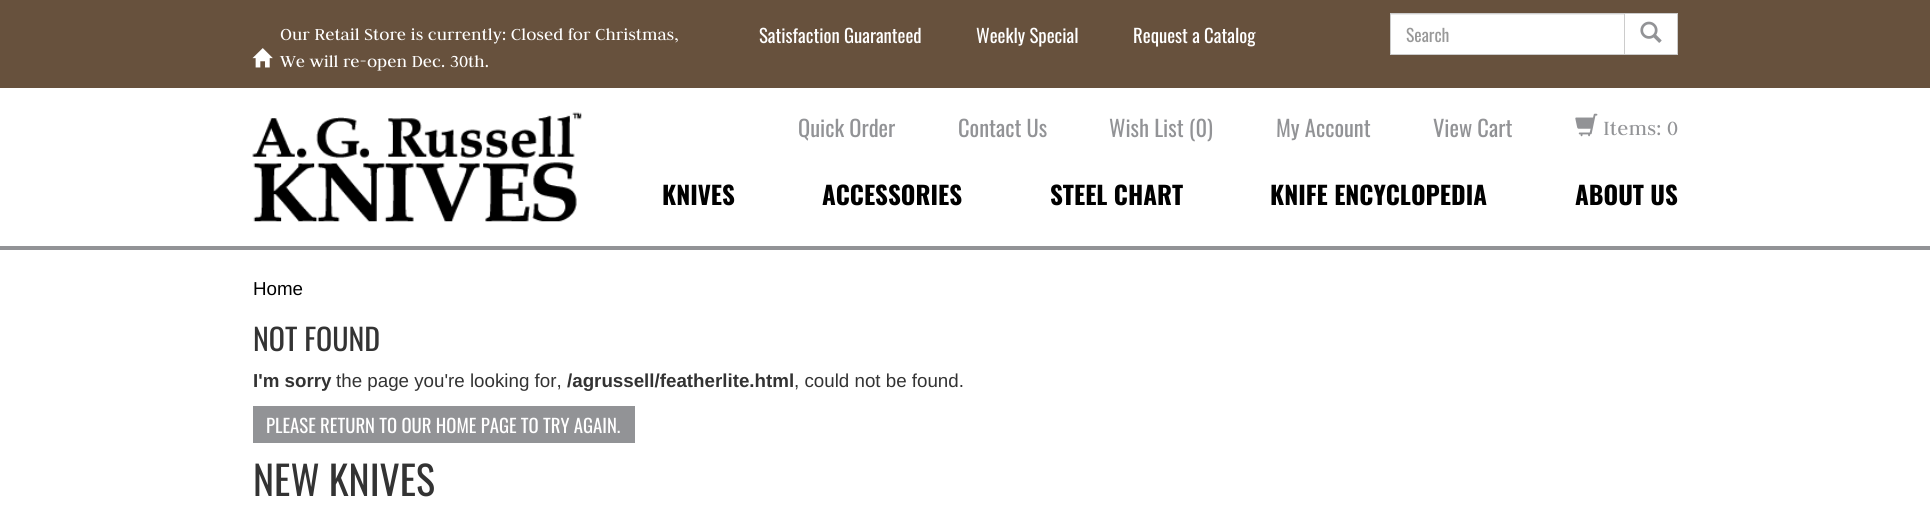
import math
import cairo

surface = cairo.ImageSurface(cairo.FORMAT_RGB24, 1930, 511)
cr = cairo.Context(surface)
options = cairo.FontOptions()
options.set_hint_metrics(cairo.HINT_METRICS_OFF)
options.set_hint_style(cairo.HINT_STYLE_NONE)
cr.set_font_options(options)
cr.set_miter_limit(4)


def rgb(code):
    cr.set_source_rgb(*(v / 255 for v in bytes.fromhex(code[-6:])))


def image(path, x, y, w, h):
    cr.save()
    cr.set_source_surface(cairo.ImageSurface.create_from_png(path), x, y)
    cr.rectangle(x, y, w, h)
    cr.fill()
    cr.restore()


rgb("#ffffff")
cr.paint()
rgb("#929396")
cr.rectangle(0, 246, 1930, 4)
cr.fill()
rgb("#67513d")
cr.rectangle(0, 0, 1930, 88)
cr.fill()
image("img/1.png", 252, 48, 21, 20)
rgb("#ffffff")
cr.rectangle(1391, 15, 233, 39)
cr.fill()
rgb("#ececec")
cr.rectangle(1391, 14, 233, 1)
cr.fill()
cr.rectangle(1390.5, 13.5, 234, 41)
rgb("#cccccc")
cr.set_line_width(1)
cr.stroke()
rgb("#ffffff")
cr.rectangle(1624.5, 13.5, 53, 41)
cr.fill_preserve()
rgb("#cccccc")
cr.stroke()
image("img/2.png", 1640, 21, 22, 22)
image("img/3.png", 252, 112, 330, 110)
image("img/4.png", 1575, 113, 23, 24)
rgb("#929396")
cr.rectangle(253, 406, 382, 37)
cr.fill()
cr.select_font_face("Judson")
cr.set_font_size(18.75)
rgb("#ffffff")
cr.move_to(280, 40)
cr.show_text("Our Retail Store is currently: Closed for Christmas,")
cr.move_to(280, 67)
cr.show_text("We will re-open Dec. 30th.")
cr.select_font_face("Oswald")
for x, y, s in [
    (759, 43, "Satisfaction Guaranteed"),
    (976, 43, "Weekly Special"),
    (1133, 43, "Request a Catalog"),
]:
    cr.move_to(x, y)
    cr.show_text(s)
cr.set_font_size(17.5)
rgb("#999999")
cr.move_to(1406, 42)
cr.show_text("Search")
cr.set_font_size(22.5)
rgb("#929396")
for x, y, s in [
    (798, 137, "Quick Order"),
    (958, 137, "Contact Us"),
    (1109, 137, "Wish List (0)"),
    (1276, 137, "My Account"),
    (1433, 137, "View Cart"),
]:
    cr.move_to(x, y)
    cr.show_text(s)
cr.select_font_face("Judson")
cr.move_to(1603, 135)
cr.show_text("Items: 0")
cr.select_font_face("Oswald", cairo.FONT_SLANT_NORMAL, cairo.FONT_WEIGHT_BOLD)
cr.set_font_size(25)
rgb("#000000")
for x, y, s in [
    (662, 205, "KNIVES"),
    (822, 205, "ACCESSORIES"),
    (1050, 205, "STEEL CHART"),
    (1270, 205, "KNIFE ENCYCLOPEDIA"),
    (1575, 205, "ABOUT US"),
]:
    cr.move_to(x, y)
    cr.show_text(s)
cr.select_font_face("Liberation Sans")
cr.set_font_size(18.75)
cr.move_to(253, 295)
cr.show_text("Home")
cr.select_font_face("Oswald")
cr.set_font_size(30)
rgb("#333333")
cr.move_to(253, 351)
cr.show_text("NOT FOUND")
cr.select_font_face("Liberation Sans", cairo.FONT_SLANT_NORMAL, cairo.FONT_WEIGHT_BOLD)
cr.set_font_size(18.75)
cr.move_to(253, 387)
cr.show_text("I'm sorry")
cr.select_font_face("Liberation Sans")
cr.move_to(336, 387)
cr.show_text("the page you're looking for,")
cr.select_font_face("Liberation Sans", cairo.FONT_SLANT_NORMAL, cairo.FONT_WEIGHT_BOLD)
cr.move_to(567, 387)
cr.show_text("/agrussell/featherlite.html")
cr.select_font_face("Liberation Sans")
cr.move_to(794, 387)
cr.show_text(", could not be found.")
cr.select_font_face("Oswald")
rgb("#ffffff")
cr.move_to(266, 433)
cr.show_text("PLEASE RETURN TO OUR HOME PAGE TO TRY AGAIN.")
cr.set_font_size(40)
rgb("#333333")
cr.move_to(253, 496)
cr.show_text("NEW KNIVES")
surface.write_to_png("page.png")
